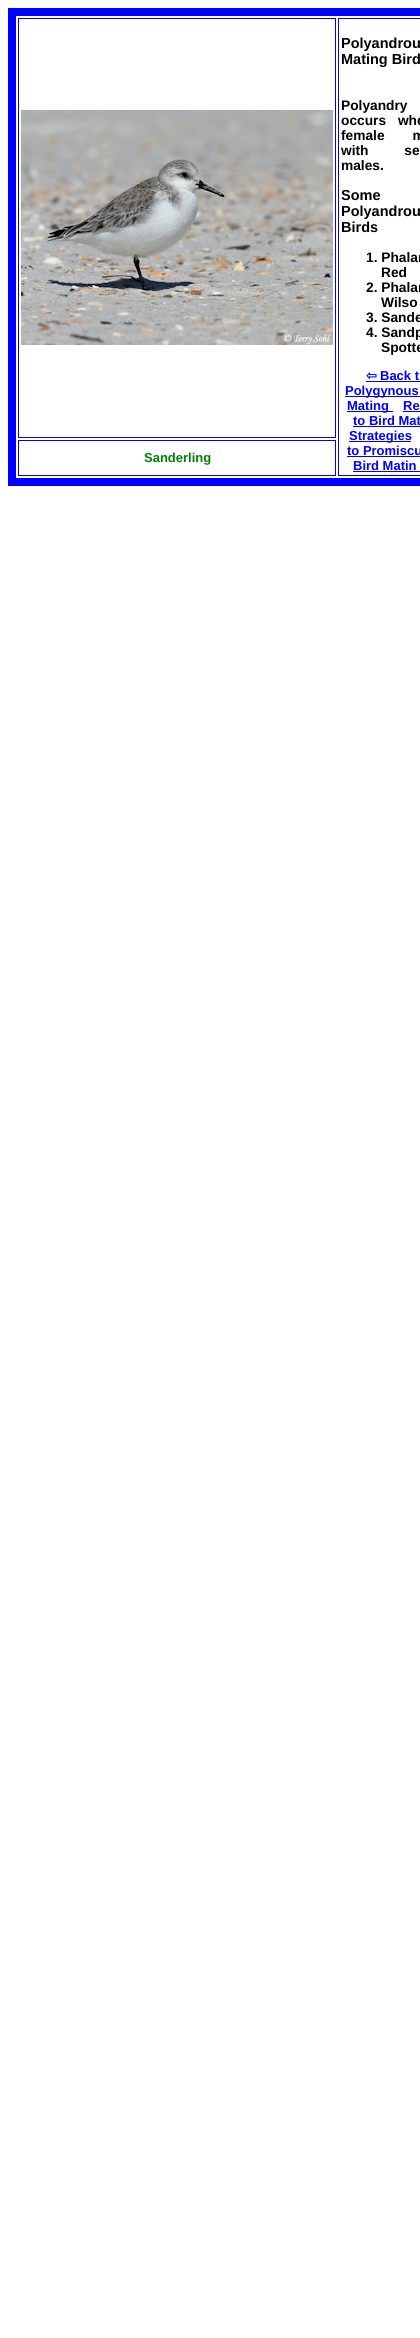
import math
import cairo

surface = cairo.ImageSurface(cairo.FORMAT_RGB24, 420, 2338)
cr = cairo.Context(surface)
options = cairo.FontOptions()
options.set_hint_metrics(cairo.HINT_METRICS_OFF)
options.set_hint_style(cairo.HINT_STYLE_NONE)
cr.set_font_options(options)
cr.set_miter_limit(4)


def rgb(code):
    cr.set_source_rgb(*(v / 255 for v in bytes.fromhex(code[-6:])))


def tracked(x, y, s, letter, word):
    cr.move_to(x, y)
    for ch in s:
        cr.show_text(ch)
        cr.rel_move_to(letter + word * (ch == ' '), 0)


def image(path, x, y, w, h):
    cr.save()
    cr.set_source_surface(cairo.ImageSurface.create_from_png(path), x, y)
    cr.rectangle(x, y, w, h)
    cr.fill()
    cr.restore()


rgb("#ffffff")
cr.paint()
cr.rectangle(12, 12, 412, 470)
rgb("#0000ff")
cr.set_line_width(8)
cr.stroke()
cr.rectangle(18.5, 440.5, 317, 35)
cr.set_line_width(1)
cr.stroke()
cr.rectangle(18.5, 18.5, 317, 419)
cr.stroke()
image("img/1.png", 21, 110, 312, 235)
cr.rectangle(338.5, 18.5, 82, 457)
cr.stroke()
for x, y, w, h, color in [
    (366, 381, 54, 1, "#0000ff"),
    (345, 396, 75, 1, "#0000ff"),
    (347, 411, 46, 1, "#0000ff"),
    (403, 411, 17, 1, "#0000ff"),
    (353, 426, 67, 1, "#0000ff"),
    (349, 441, 62, 1, "#0000ff"),
    (347, 456, 73, 1, "#0000ff"),
    (353, 471, 67, 1, "#0000ff"),
]:
    rgb(color)
    cr.rectangle(x, y, w, h)
    cr.fill()
cr.select_font_face("Liberation Sans", cairo.FONT_SLANT_NORMAL, cairo.FONT_WEIGHT_BOLD)
cr.set_font_size(13)
rgb("#008000")
cr.move_to(144, 462)
cr.show_text("Sanderling")
cr.set_font_size(14.5)
rgb("#000000")
cr.move_to(341, 48)
cr.show_text("Polyandrou")
cr.move_to(341, 64)
cr.show_text("Mating Bird")
cr.set_font_size(13.75)
cr.move_to(341, 110)
cr.show_text("Polyandry")
tracked(341, 125, "occurs whe", 0, 8)
tracked(341, 140, "female m", 0, 24)
tracked(341, 155, "with se", 0, 32)
cr.move_to(341, 170)
cr.show_text("males.")
cr.set_font_size(14.5)
for x, y, s in [
    (341, 200, "Some"),
    (341, 216, "Polyandrou"),
    (341, 232, "Birds"),
]:
    cr.move_to(x, y)
    cr.show_text(s)
cr.set_font_size(13.75)
for x, y, s in [
    (366, 262, "1. Phalar"),
    (381, 277, "Red"),
    (366, 292, "2. Phalar"),
    (381, 307, "Wilso"),
    (366, 322, "3. Sande"),
    (366, 337, "4. Sandp"),
    (381, 352, "Spotte"),
]:
    cr.move_to(x, y)
    cr.show_text(s)
cr.select_font_face("DejaVu Sans", cairo.FONT_SLANT_NORMAL, cairo.FONT_WEIGHT_BOLD)
cr.set_font_size(13)
rgb("#0000ff")
cr.move_to(366, 380)
cr.show_text("⇦")
cr.select_font_face("Liberation Sans", cairo.FONT_SLANT_NORMAL, cairo.FONT_WEIGHT_BOLD)
for x, y, s in [
    (380, 380, "Back t"),
    (345, 395, "Polygynous"),
    (347, 410, "Mating"),
    (403, 410, "Re"),
    (353, 425, "to Bird Mat"),
    (349, 440, "Strategies"),
    (347, 455, "to Promiscu"),
    (353, 470, "Bird Matin"),
]:
    cr.move_to(x, y)
    cr.show_text(s)
surface.write_to_png("page.png")
